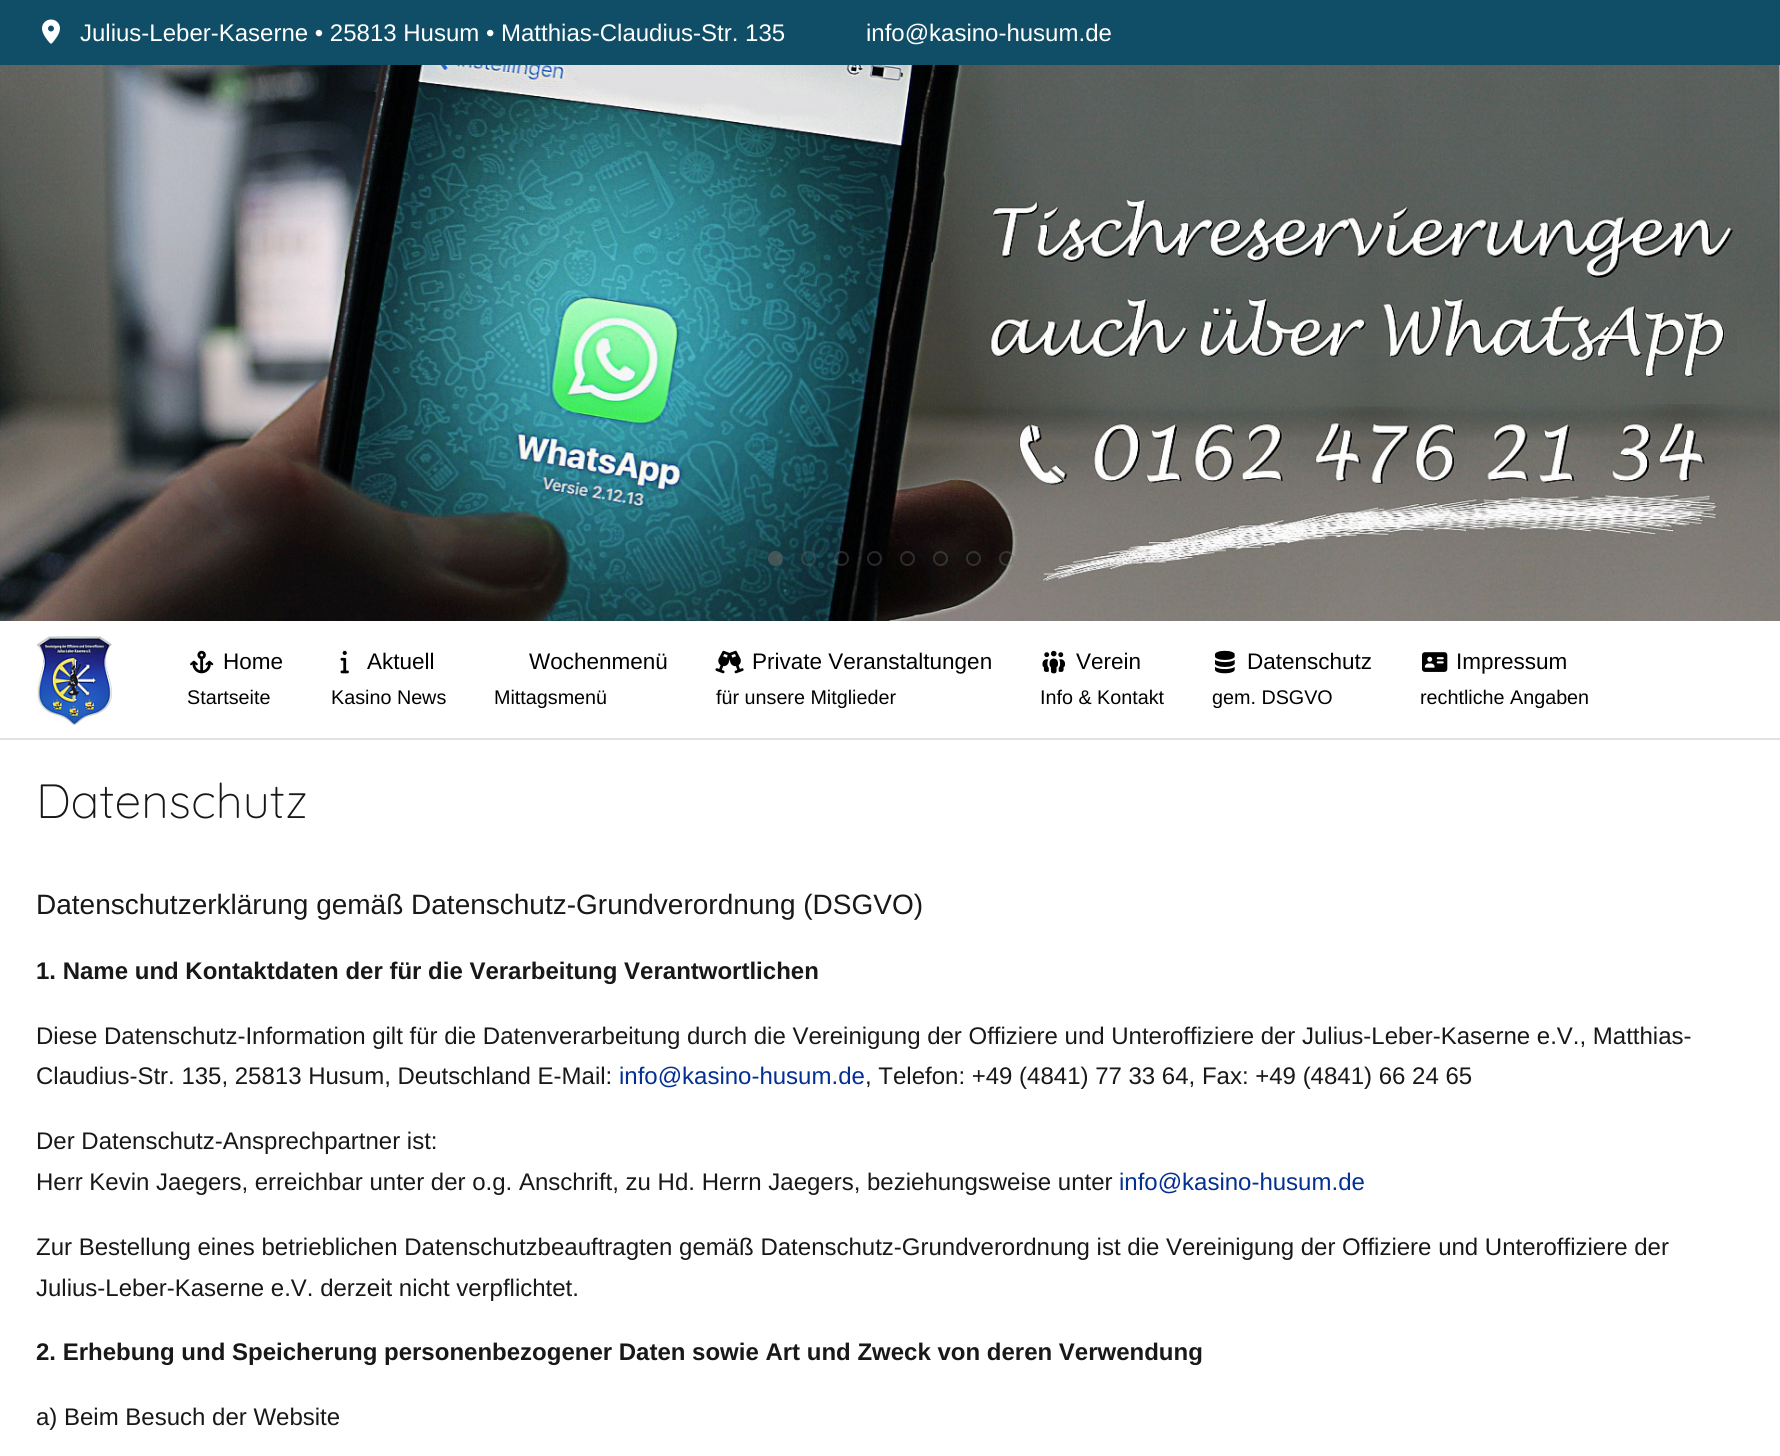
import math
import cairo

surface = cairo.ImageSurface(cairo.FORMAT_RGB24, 1780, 1456)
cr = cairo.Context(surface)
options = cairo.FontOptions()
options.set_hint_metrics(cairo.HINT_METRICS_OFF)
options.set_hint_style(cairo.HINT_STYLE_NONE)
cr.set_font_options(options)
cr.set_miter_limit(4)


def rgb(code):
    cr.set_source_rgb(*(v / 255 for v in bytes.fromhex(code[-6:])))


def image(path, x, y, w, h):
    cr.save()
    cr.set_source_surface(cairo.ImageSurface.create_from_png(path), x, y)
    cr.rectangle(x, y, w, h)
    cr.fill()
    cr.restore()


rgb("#ffffff")
cr.paint()
rgb("#0f4e66")
cr.rectangle(0, 0, 1780, 65)
cr.fill()
image("img/1.png", 42, 19, 18, 25)
image("img/2.png", 0, 65, 1780, 556)
cr.set_source_rgba(0.4, 0.4, 0.4, 0.6)
cr.arc(775.5, 558.5, 7.5, 0, 2 * math.pi)
cr.fill()
cr.arc(808.5, 558.5, 6.5, 0, 2 * math.pi)
cr.set_source_rgba(0.4, 0.4, 0.4, 0.4)
cr.stroke()
cr.arc(841.5, 558.5, 6.5, 0, 2 * math.pi)
cr.stroke()
cr.arc(874.5, 558.5, 6.5, 0, 2 * math.pi)
cr.stroke()
cr.arc(907.5, 558.5, 6.5, 0, 2 * math.pi)
cr.stroke()
cr.arc(940.5, 558.5, 6.5, 0, 2 * math.pi)
cr.stroke()
cr.arc(973.5, 558.5, 6.5, 0, 2 * math.pi)
cr.stroke()
cr.arc(1006.5, 558.5, 6.5, 0, 2 * math.pi)
cr.stroke()
rgb("#dee2e6")
cr.rectangle(0, 738, 1780, 2)
cr.fill()
image("img/3.png", 36, 636, 76, 89)
image("img/4.png", 190, 650, 24, 24)
image("img/5.png", 340, 650, 9, 24)
image("img/6.png", 715, 650, 29, 24)
image("img/7.png", 1042, 650, 23, 24)
image("img/8.png", 1215, 650, 20, 24)
image("img/9.png", 1422, 652, 26, 20)
cr.select_font_face("Liberation Sans")
cr.set_font_size(24)
rgb("#ffffff")
cr.move_to(80, 41)
cr.show_text("Julius-Leber-Kaserne • 25813 Husum • Matthias-Claudius-Str. 135")
cr.move_to(866, 41)
cr.show_text("info@kasino-husum.de")
cr.set_font_size(22.5)
rgb("#000000")
cr.move_to(223, 669)
cr.show_text("Home")
cr.set_font_size(19.75)
cr.move_to(187, 704)
cr.show_text("Startseite")
cr.set_font_size(22.5)
cr.move_to(367, 669)
cr.show_text("Aktuell")
cr.set_font_size(19.75)
cr.move_to(331, 704)
cr.show_text("Kasino News")
cr.set_font_size(22.5)
cr.move_to(529, 669)
cr.show_text("Wochenmenü")
cr.set_font_size(19.75)
cr.move_to(494, 704)
cr.show_text("Mittagsmenü")
cr.set_font_size(22.5)
cr.move_to(752, 669)
cr.show_text("Private Veranstaltungen")
cr.set_font_size(19.75)
cr.move_to(716, 704)
cr.show_text("für unsere Mitglieder")
cr.set_font_size(22.5)
cr.move_to(1076, 669)
cr.show_text("Verein")
cr.set_font_size(19.75)
cr.move_to(1040, 704)
cr.show_text("Info & Kontakt")
cr.set_font_size(22.5)
cr.move_to(1247, 669)
cr.show_text("Datenschutz")
cr.set_font_size(19.75)
cr.move_to(1212, 704)
cr.show_text("gem. DSGVO")
cr.set_font_size(22.5)
cr.move_to(1456, 669)
cr.show_text("Impressum")
cr.set_font_size(19.75)
cr.move_to(1420, 704)
cr.show_text("rechtliche Angaben")
cr.select_font_face("Quicksand Light")
cr.set_font_size(48)
rgb("#181818")
cr.move_to(36, 818)
cr.show_text("Datenschutz")
cr.select_font_face("Liberation Sans")
cr.set_font_size(28)
cr.move_to(36, 914)
cr.show_text("Datenschutzerklärung gemäß Datenschutz-Grundverordnung (DSGVO)")
cr.select_font_face("Liberation Sans", cairo.FONT_SLANT_NORMAL, cairo.FONT_WEIGHT_BOLD)
cr.set_font_size(24)
cr.move_to(36, 979)
cr.show_text("1. Name und Kontaktdaten der für die Verarbeitung Verantwortlichen")
cr.select_font_face("Liberation Sans")
cr.move_to(36, 1044)
cr.show_text("Diese Datenschutz-Information gilt für die Datenverarbeitung durch die Vereinigung der Offiziere und Unteroffiziere der Julius-Leber-Kaserne e.V., Matthias-")
cr.move_to(36, 1084)
cr.show_text("Claudius-Str. 135, 25813 Husum, Deutschland E-Mail:")
rgb("#032f93")
cr.move_to(619, 1084)
cr.show_text("info@kasino-husum.de")
rgb("#181818")
for x, y, s in [
    (865, 1084, ", Telefon: +49 (4841) 77 33 64, Fax: +49 (4841) 66 24 65"),
    (36, 1149, "Der Datenschutz-Ansprechpartner ist:"),
    (36, 1190, "Herr Kevin Jaegers, erreichbar unter der o.g. Anschrift, zu Hd. Herrn Jaegers, beziehungsweise unter"),
]:
    cr.move_to(x, y)
    cr.show_text(s)
rgb("#032f93")
cr.move_to(1119, 1190)
cr.show_text("info@kasino-husum.de")
rgb("#181818")
cr.move_to(36, 1255)
cr.show_text("Zur Bestellung eines betrieblichen Datenschutzbeauftragten gemäß Datenschutz-Grundverordnung ist die Vereinigung der Offiziere und Unteroffiziere der")
cr.move_to(36, 1296)
cr.show_text("Julius-Leber-Kaserne e.V. derzeit nicht verpflichtet.")
cr.select_font_face("Liberation Sans", cairo.FONT_SLANT_NORMAL, cairo.FONT_WEIGHT_BOLD)
cr.move_to(36, 1360)
cr.show_text("2. Erhebung und Speicherung personenbezogener Daten sowie Art und Zweck von deren Verwendung")
cr.select_font_face("Liberation Sans")
cr.move_to(36, 1425)
cr.show_text("a) Beim Besuch der Website")
surface.write_to_png("page.png")
